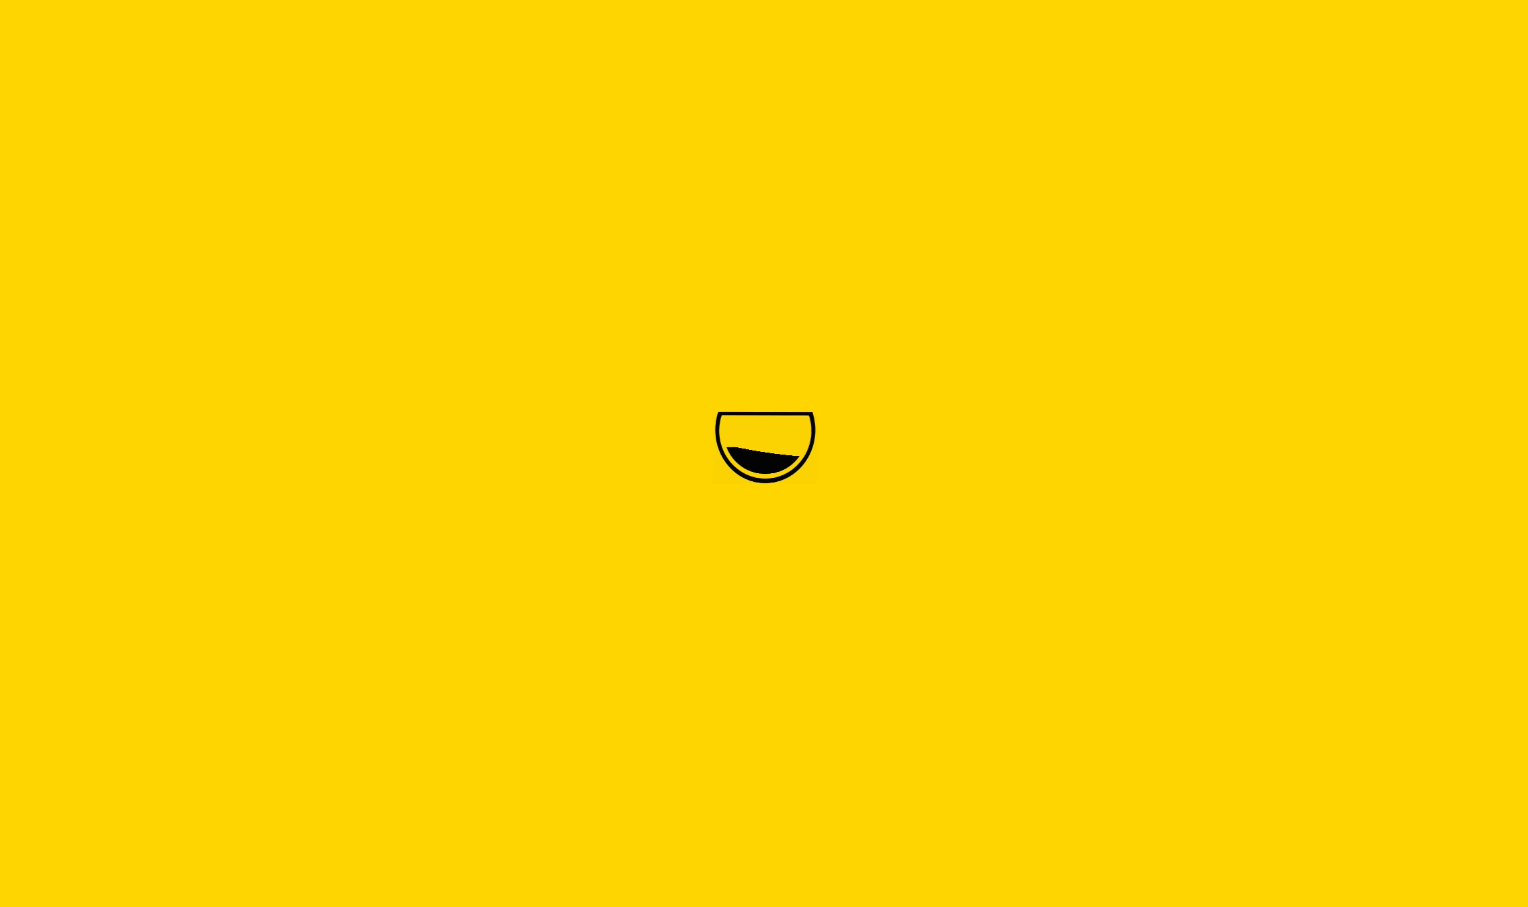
import math
import cairo

surface = cairo.ImageSurface(cairo.FORMAT_RGB24, 1528, 907)
cr = cairo.Context(surface)
options = cairo.FontOptions()
options.set_hint_metrics(cairo.HINT_METRICS_OFF)
options.set_hint_style(cairo.HINT_STYLE_NONE)
cr.set_font_options(options)
cr.set_miter_limit(4)


def rgb(code):
    cr.set_source_rgb(*(v / 255 for v in bytes.fromhex(code[-6:])))


def image(path, x, y, w, h):
    cr.save()
    cr.set_source_surface(cairo.ImageSurface.create_from_png(path), x, y)
    cr.rectangle(x, y, w, h)
    cr.fill()
    cr.restore()


rgb("#ffd500")
cr.paint()
image("img/1.png", 713, 411, 104, 73)
surface.write_to_png("page.png")
